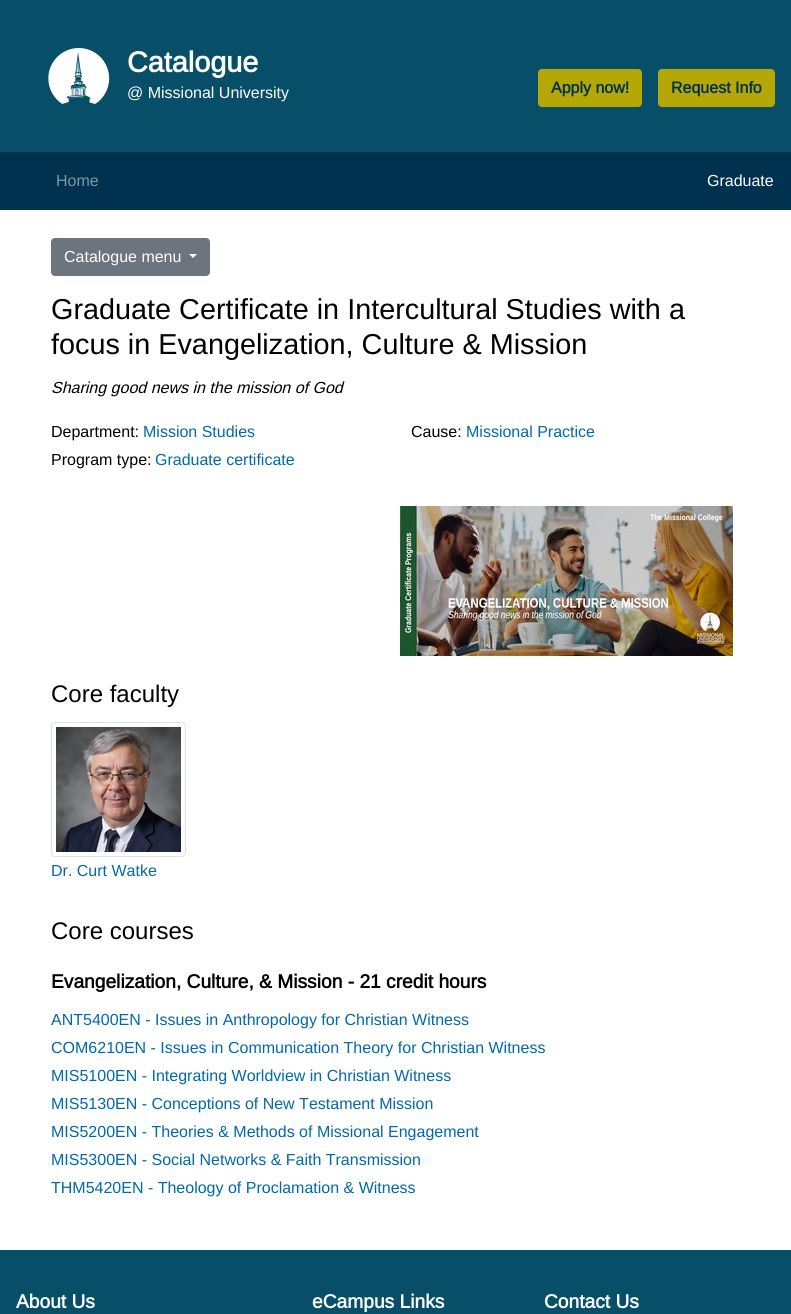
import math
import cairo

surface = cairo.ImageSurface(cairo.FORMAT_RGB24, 791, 1314)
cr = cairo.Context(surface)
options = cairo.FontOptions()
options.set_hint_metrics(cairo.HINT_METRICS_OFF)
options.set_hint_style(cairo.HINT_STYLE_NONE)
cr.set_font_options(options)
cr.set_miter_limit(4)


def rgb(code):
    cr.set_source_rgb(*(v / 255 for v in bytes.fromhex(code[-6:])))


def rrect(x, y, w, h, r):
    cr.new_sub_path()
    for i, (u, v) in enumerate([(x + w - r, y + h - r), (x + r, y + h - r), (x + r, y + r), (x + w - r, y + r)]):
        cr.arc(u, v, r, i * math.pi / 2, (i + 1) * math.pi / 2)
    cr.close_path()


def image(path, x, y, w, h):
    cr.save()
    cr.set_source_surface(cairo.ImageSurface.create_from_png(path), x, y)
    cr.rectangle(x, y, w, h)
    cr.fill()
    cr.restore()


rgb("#074f68")
cr.paint()
image("img/1.png", 48, 48, 62, 56)
rgb("#b5a804")
rrect(538, 69, 104, 38, 4)
cr.fill()
rrect(658, 69, 117, 38, 4)
cr.fill()
rgb("#00314f")
cr.rectangle(0, 152, 791, 58)
cr.fill()
rgb("#ffffff")
cr.rectangle(0, 210, 791, 1040)
cr.fill()
rgb("#6c757d")
rrect(51.5, 238.5, 158, 37, 3.5)
cr.fill_preserve()
cr.set_line_width(1)
cr.stroke()
rgb("#ffffff")
cr.new_path()
cr.move_to(189, 254)
cr.line_to(197, 254)
cr.line_to(193, 258)
cr.close_path()
cr.fill()
image("img/2.png", 400, 506, 333, 150)
rrect(51.5, 722.5, 134, 134, 3.5)
rgb("#dee2e6")
cr.stroke()
image("img/3.png", 56, 727, 125, 125)
cr.select_font_face("Liberation Sans", cairo.FONT_SLANT_NORMAL, cairo.FONT_WEIGHT_BOLD)
cr.set_font_size(28.8)
rgb("#ffffff")
cr.move_to(127, 72)
cr.show_text("Catalogue")
cr.select_font_face("Liberation Sans")
cr.set_font_size(16)
cr.move_to(127, 98)
cr.show_text("@ Missional University")
cr.select_font_face("Liberation Sans", cairo.FONT_SLANT_NORMAL, cairo.FONT_WEIGHT_BOLD)
rgb("#00314f")
cr.move_to(551, 93)
cr.show_text("Apply now!")
cr.move_to(671, 93)
cr.show_text("Request Info")
cr.select_font_face("Liberation Sans")
rgb("#8098a7")
cr.move_to(56, 186)
cr.show_text("Home")
rgb("#ffffff")
cr.move_to(707, 186)
cr.show_text("Graduate")
cr.move_to(64, 262)
cr.show_text("Catalogue menu")
cr.set_font_size(28.8)
rgb("#000000")
cr.move_to(51, 319)
cr.show_text("Graduate Certificate in Intercultural Studies with a")
cr.move_to(51, 354)
cr.show_text("focus in Evangelization, Culture & Mission")
cr.select_font_face("Liberation Sans", cairo.FONT_SLANT_ITALIC)
cr.set_font_size(16)
cr.move_to(51, 393)
cr.show_text("Sharing good news in the mission of God")
cr.select_font_face("Liberation Sans")
cr.move_to(51, 437)
cr.show_text("Department:")
rgb("#0069ab")
cr.move_to(143, 437)
cr.show_text("Mission Studies")
rgb("#000000")
cr.move_to(411, 437)
cr.show_text("Cause:")
rgb("#0069ab")
cr.move_to(466, 437)
cr.show_text("Missional Practice")
rgb("#000000")
cr.move_to(51, 465)
cr.show_text("Program type:")
rgb("#0069ab")
cr.move_to(155, 465)
cr.show_text("Graduate certificate")
cr.set_font_size(24)
rgb("#000000")
cr.move_to(51, 702)
cr.show_text("Core faculty")
cr.set_font_size(16)
rgb("#0069ab")
cr.move_to(51, 876)
cr.show_text("Dr. Curt Watke")
cr.set_font_size(24)
rgb("#000000")
cr.move_to(51, 939)
cr.show_text("Core courses")
cr.select_font_face("Liberation Sans", cairo.FONT_SLANT_NORMAL, cairo.FONT_WEIGHT_BOLD)
cr.set_font_size(19.2)
cr.move_to(51, 988)
cr.show_text("Evangelization, Culture, & Mission - 21 credit hours")
cr.select_font_face("Liberation Sans")
cr.set_font_size(16)
rgb("#0069ab")
for x, y, s in [
    (51, 1025, "ANT5400EN - Issues in Anthropology for Christian Witness"),
    (51, 1053, "COM6210EN - Issues in Communication Theory for Christian Witness"),
    (51, 1081, "MIS5100EN - Integrating Worldview in Christian Witness"),
    (51, 1109, "MIS5130EN - Conceptions of New Testament Mission"),
    (51, 1137, "MIS5200EN - Theories & Methods of Missional Engagement"),
    (51, 1165, "MIS5300EN - Social Networks & Faith Transmission"),
    (51, 1193, "THM5420EN - Theology of Proclamation & Witness"),
]:
    cr.move_to(x, y)
    cr.show_text(s)
cr.select_font_face("Liberation Sans", cairo.FONT_SLANT_NORMAL, cairo.FONT_WEIGHT_BOLD)
cr.set_font_size(19.2)
rgb("#ffffff")
for x, y, s in [
    (16, 1308, "About Us"),
    (312, 1308, "eCampus Links"),
    (544, 1308, "Contact Us"),
]:
    cr.move_to(x, y)
    cr.show_text(s)
surface.write_to_png("page.png")
